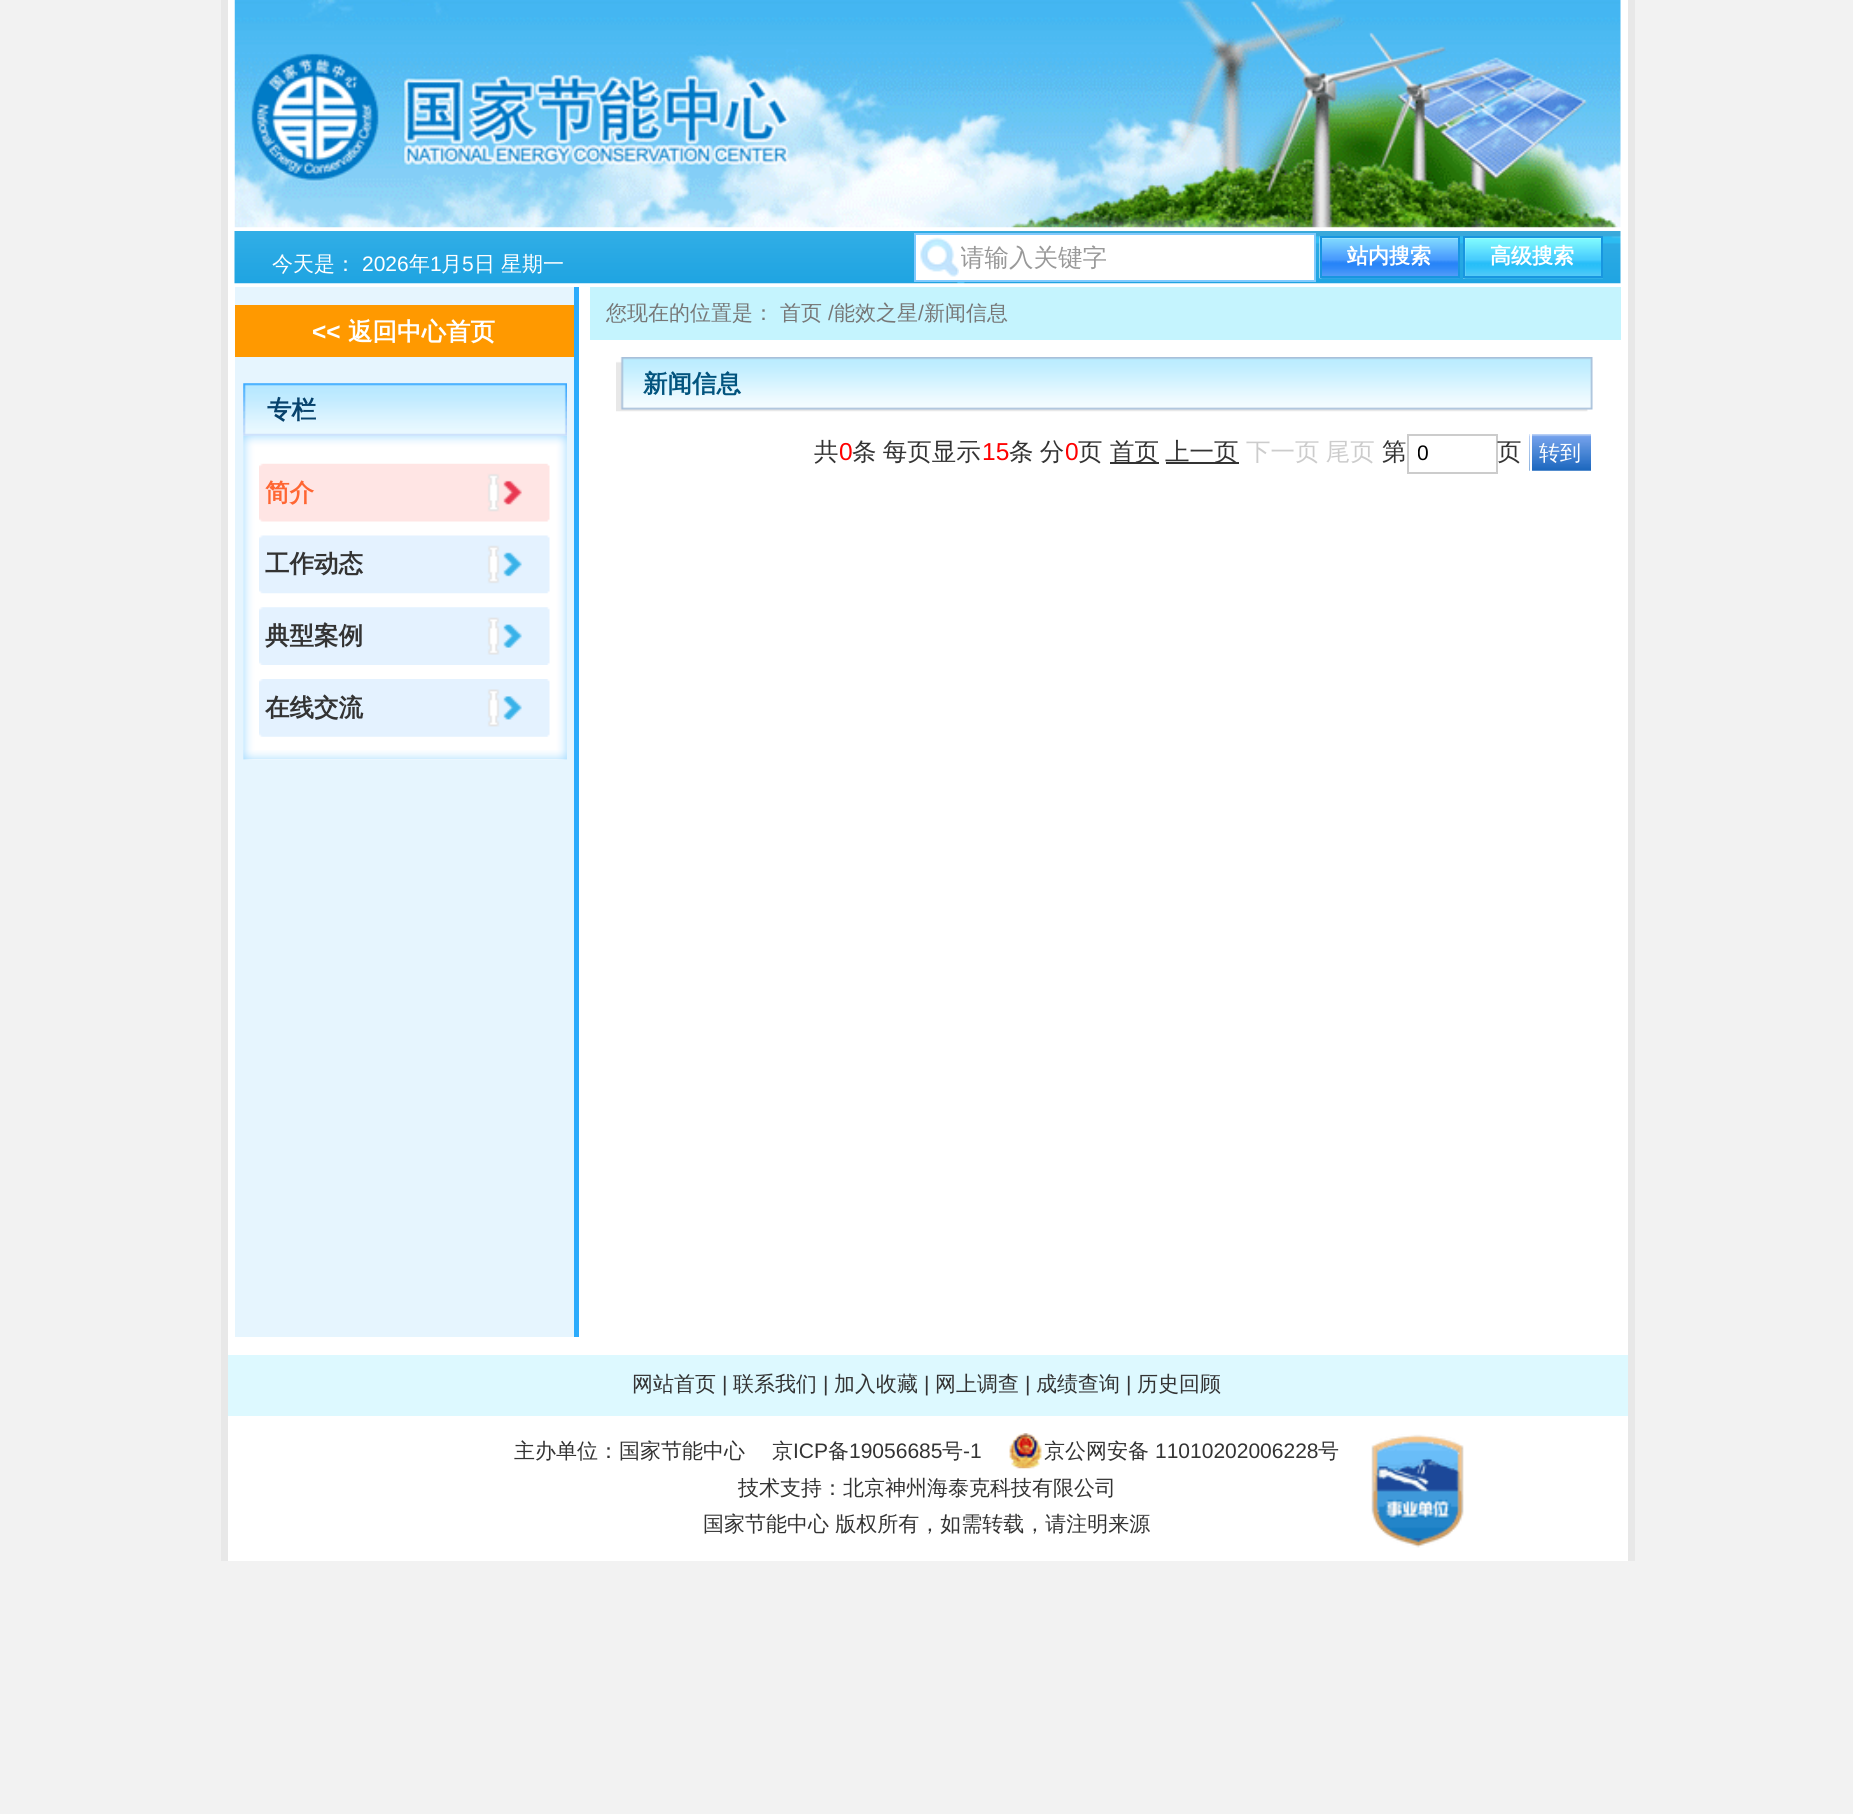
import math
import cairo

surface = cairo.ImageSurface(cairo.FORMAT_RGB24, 1853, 1814)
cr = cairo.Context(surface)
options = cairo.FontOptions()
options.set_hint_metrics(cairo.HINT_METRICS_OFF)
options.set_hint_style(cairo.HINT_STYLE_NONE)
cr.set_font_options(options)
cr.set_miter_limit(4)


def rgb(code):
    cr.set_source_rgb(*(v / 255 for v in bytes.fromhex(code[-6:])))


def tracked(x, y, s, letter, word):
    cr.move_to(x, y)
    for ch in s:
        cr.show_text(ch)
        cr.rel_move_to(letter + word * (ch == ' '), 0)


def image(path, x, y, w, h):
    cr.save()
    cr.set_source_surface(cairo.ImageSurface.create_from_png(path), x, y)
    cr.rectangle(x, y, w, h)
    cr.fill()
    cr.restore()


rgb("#f2f2f2")
cr.paint()
for x, y, w, h, color in [
    (228, 0, 1400, 1561, "#ffffff"),
    (1628, 0, 7, 1561, "#e8e8e8"),
    (221, 0, 7, 1561, "#e8e8e8"),
]:
    rgb(color)
    cr.rectangle(x, y, w, h)
    cr.fill()
image("img/1.png", 234, 0, 1387, 228)
image("img/2.png", 234, 231, 1387, 53)
rgb("#ffffff")
cr.rectangle(916, 235, 398, 45)
cr.fill()
image("img/3.png", 920, 237, 39, 40)
cr.rectangle(915, 234, 400, 47)
rgb("#82cafd")
cr.stroke()
image("img/4.png", 1319, 236, 141, 43)
cr.rectangle(1321, 237, 138, 40)
rgb("#1896e0")
cr.stroke()
image("img/5.png", 1463, 238, 140, 41)
cr.rectangle(1464, 237, 138, 40)
cr.stroke()
for x, y, w, h, color in [
    (235, 287, 339, 1050, "#e6f5fe"),
    (574, 287, 5, 1050, "#2babfc"),
    (235, 305, 339, 52, "#ff9900"),
]:
    rgb(color)
    cr.rectangle(x, y, w, h)
    cr.fill()
image("img/6.png", 243, 383, 324, 53)
image("img/7.png", 243, 435, 324, 325)
image("img/8.png", 243, 750, 324, 10)
image("img/9.png", 259, 463, 291, 59)
image("img/10.png", 259, 535, 291, 59)
image("img/11.png", 259, 607, 291, 58)
image("img/12.png", 259, 679, 291, 58)
rgb("#c5f4fe")
cr.rectangle(590, 287, 1031, 53)
cr.fill()
image("img/13.png", 616, 357, 977, 55)
rgb("#333333")
cr.rectangle(1110, 462, 49, 2)
cr.fill()
cr.rectangle(1166, 462, 73, 2)
cr.fill()
cr.rectangle(1408, 435, 89, 38)
rgb("#cccccc")
cr.stroke()
image("img/14.png", 1529, 434, 62, 37)
cr.rectangle(1531, 433, 61, 39)
rgb("#ffffff")
cr.stroke()
rgb("#ddf9ff")
cr.rectangle(228, 1355, 1400, 61)
cr.fill()
image("img/15.png", 1009, 1433, 33, 36)
image("img/16.png", 1371, 1434, 93, 114)
cr.select_font_face("WenQuanYi Zen Hei Medium")
cr.set_font_size(21)
rgb("#ffffff")
cr.move_to(272, 271)
cr.show_text("今天是：")
cr.select_font_face("Liberation Sans")
cr.move_to(362, 271)
cr.show_text("2026")
cr.select_font_face("WenQuanYi Zen Hei Medium")
cr.move_to(409, 271)
cr.show_text("年")
cr.select_font_face("Liberation Sans")
cr.move_to(430, 271)
cr.show_text("1")
cr.select_font_face("WenQuanYi Zen Hei Medium")
cr.move_to(441, 271)
cr.show_text("月")
cr.select_font_face("Liberation Sans")
cr.move_to(462, 271)
cr.show_text("5")
cr.select_font_face("WenQuanYi Zen Hei Medium")
cr.move_to(474, 271)
cr.show_text("日")
cr.move_to(501, 271)
cr.show_text("星期一")
cr.save()
cr.rectangle(961, 236, 350, 42)
cr.clip()
cr.set_font_size(24.5)
rgb("#999999")
cr.move_to(960, 266)
cr.show_text("请输入关键字")
cr.restore()
cr.select_font_face("WenQuanYi Zen Hei", cairo.FONT_SLANT_NORMAL, cairo.FONT_WEIGHT_BOLD)
cr.move_to(1347, 263)
cr.show_text("站内搜索")
cr.move_to(1490, 263)
cr.show_text("高级搜索")
cr.select_font_face("Liberation Sans", cairo.FONT_SLANT_NORMAL, cairo.FONT_WEIGHT_BOLD)
cr.set_font_size(24.5)
cr.move_to(312, 340)
cr.show_text("<<")
cr.select_font_face("WenQuanYi Zen Hei", cairo.FONT_SLANT_NORMAL, cairo.FONT_WEIGHT_BOLD)
cr.move_to(348, 340)
cr.show_text("返回中心首页")
rgb("#07426c")
cr.move_to(267, 418)
cr.show_text("专栏")
rgb("#ff6633")
cr.move_to(265, 501)
cr.show_text("简介")
rgb("#333333")
for x, y, s in [
    (265, 572, "工作动态"),
    (265, 644, "典型案例"),
    (265, 716, "在线交流"),
]:
    cr.move_to(x, y)
    cr.show_text(s)
cr.select_font_face("WenQuanYi Zen Hei Medium")
cr.set_font_size(21)
rgb("#777777")
cr.move_to(606, 320)
cr.show_text("您现在的位置是：")
cr.move_to(780, 320)
cr.show_text("首页")
cr.select_font_face("Liberation Sans")
cr.move_to(828, 320)
cr.show_text("/")
cr.select_font_face("WenQuanYi Zen Hei Medium")
cr.move_to(834, 320)
cr.show_text("能效之星")
cr.select_font_face("Liberation Sans")
cr.move_to(918, 320)
cr.show_text("/")
cr.select_font_face("WenQuanYi Zen Hei Medium")
cr.move_to(924, 320)
cr.show_text("新闻信息")
cr.select_font_face("WenQuanYi Zen Hei", cairo.FONT_SLANT_NORMAL, cairo.FONT_WEIGHT_BOLD)
cr.set_font_size(24.5)
rgb("#02547e")
cr.move_to(643, 392)
cr.show_text("新闻信息")
cr.select_font_face("WenQuanYi Zen Hei Medium")
rgb("#333333")
cr.move_to(814, 460)
cr.show_text("共")
cr.select_font_face("Liberation Sans")
rgb("#ff0000")
cr.move_to(839, 460)
cr.show_text("0")
cr.select_font_face("WenQuanYi Zen Hei Medium")
rgb("#333333")
tracked(852, 460, "条 每页显示", 0, -1)
cr.select_font_face("Liberation Sans")
rgb("#ff0000")
cr.move_to(982, 460)
cr.show_text("15")
cr.select_font_face("WenQuanYi Zen Hei Medium")
rgb("#333333")
tracked(1009, 460, "条 分", 0, -1)
cr.select_font_face("Liberation Sans")
rgb("#ff0000")
cr.move_to(1065, 460)
cr.show_text("0")
cr.select_font_face("WenQuanYi Zen Hei Medium")
rgb("#333333")
for x, y, s in [
    (1078, 460, "页"),
    (1110, 460, "首页"),
    (1165, 460, "上一页"),
]:
    cr.move_to(x, y)
    cr.show_text(s)
rgb("#cccccc")
tracked(1246, 460, "下一页 尾页", 0, -1)
rgb("#333333")
cr.move_to(1382, 460)
cr.show_text("第")
cr.save()
cr.rectangle(1418, 438, 75, 33)
cr.clip()
cr.select_font_face("Liberation Sans")
cr.set_font_size(21)
rgb("#000000")
cr.move_to(1417, 460)
cr.show_text("0")
cr.restore()
cr.move_to(1497, 460)
cr.show_text("页")
cr.set_font_size(21)
rgb("#ffffff")
cr.move_to(1539, 460)
cr.show_text("转到")
rgb("#333333")
cr.move_to(632, 1391)
cr.show_text("网站首页")
cr.select_font_face("Liberation Sans")
cr.move_to(722, 1391)
cr.show_text("|")
cr.select_font_face("WenQuanYi Zen Hei Medium")
cr.move_to(733, 1391)
cr.show_text("联系我们")
cr.select_font_face("Liberation Sans")
cr.move_to(823, 1391)
cr.show_text("|")
cr.select_font_face("WenQuanYi Zen Hei Medium")
cr.move_to(834, 1391)
cr.show_text("加入收藏")
cr.select_font_face("Liberation Sans")
cr.move_to(924, 1391)
cr.show_text("|")
cr.select_font_face("WenQuanYi Zen Hei Medium")
cr.move_to(935, 1391)
cr.show_text("网上调查")
cr.select_font_face("Liberation Sans")
cr.move_to(1025, 1391)
cr.show_text("|")
cr.select_font_face("WenQuanYi Zen Hei Medium")
cr.move_to(1036, 1391)
cr.show_text("成绩查询")
cr.select_font_face("Liberation Sans")
cr.move_to(1126, 1391)
cr.show_text("|")
cr.select_font_face("WenQuanYi Zen Hei Medium")
for x, y, s in [
    (1137, 1391, "历史回顾"),
    (514, 1458, "主办单位：国家节能中心"),
    (772, 1458, "京"),
]:
    cr.move_to(x, y)
    cr.show_text(s)
cr.select_font_face("Liberation Sans")
cr.move_to(793, 1458)
cr.show_text("ICP")
cr.select_font_face("WenQuanYi Zen Hei Medium")
cr.move_to(828, 1458)
cr.show_text("备")
cr.select_font_face("Liberation Sans")
cr.move_to(849, 1458)
cr.show_text("19056685")
cr.select_font_face("WenQuanYi Zen Hei Medium")
cr.move_to(942, 1458)
cr.show_text("号")
cr.select_font_face("Liberation Sans")
cr.move_to(963, 1458)
cr.show_text("-1")
cr.select_font_face("WenQuanYi Zen Hei Medium")
cr.move_to(1044, 1458)
cr.show_text("京公网安备")
cr.select_font_face("Liberation Sans")
cr.move_to(1155, 1458)
cr.show_text("11010202006228")
cr.select_font_face("WenQuanYi Zen Hei Medium")
for x, y, s in [
    (1318, 1458, "号"),
    (738, 1495, "技术支持：北京神州海泰克科技有限公司"),
    (703, 1531, "国家节能中心 版权所有，如需转载，请注明来源"),
]:
    cr.move_to(x, y)
    cr.show_text(s)
surface.write_to_png("page.png")
